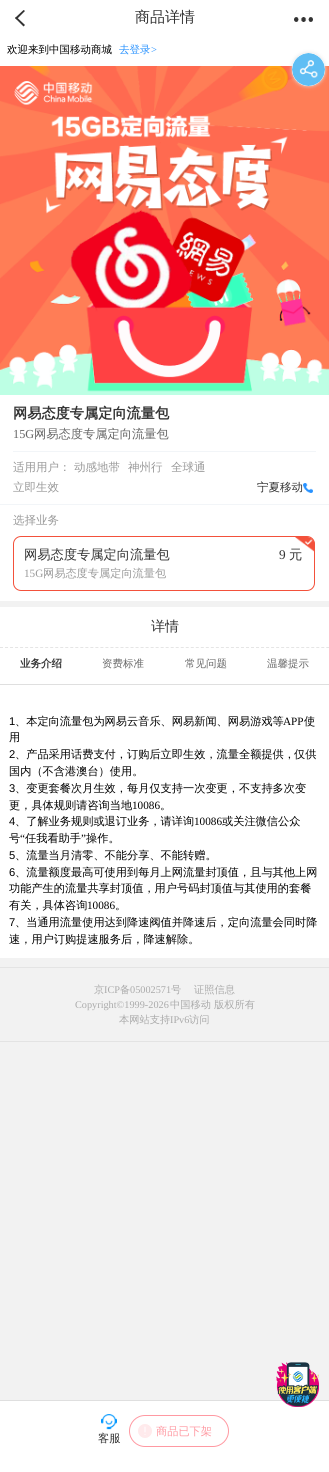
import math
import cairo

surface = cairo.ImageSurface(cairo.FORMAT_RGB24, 329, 1472)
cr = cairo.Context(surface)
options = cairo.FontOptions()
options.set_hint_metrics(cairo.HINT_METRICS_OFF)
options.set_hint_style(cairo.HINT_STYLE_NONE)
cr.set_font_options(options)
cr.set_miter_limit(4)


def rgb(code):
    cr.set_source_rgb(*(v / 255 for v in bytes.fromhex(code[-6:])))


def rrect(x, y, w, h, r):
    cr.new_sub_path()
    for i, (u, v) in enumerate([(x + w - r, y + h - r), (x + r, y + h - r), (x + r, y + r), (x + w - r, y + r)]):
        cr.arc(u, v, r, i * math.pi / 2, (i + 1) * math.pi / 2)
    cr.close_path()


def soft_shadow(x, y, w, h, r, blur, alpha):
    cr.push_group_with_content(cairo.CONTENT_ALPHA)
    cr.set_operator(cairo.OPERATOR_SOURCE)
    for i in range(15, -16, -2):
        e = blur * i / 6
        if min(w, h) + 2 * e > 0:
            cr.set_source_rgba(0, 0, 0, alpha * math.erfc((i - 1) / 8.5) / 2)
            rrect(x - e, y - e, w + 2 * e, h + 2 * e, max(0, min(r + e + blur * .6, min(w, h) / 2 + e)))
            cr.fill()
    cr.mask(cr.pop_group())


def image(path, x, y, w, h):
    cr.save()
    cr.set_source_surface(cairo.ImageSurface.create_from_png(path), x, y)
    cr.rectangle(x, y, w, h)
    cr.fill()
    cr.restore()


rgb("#f2f2f2")
cr.paint()
rgb("#ffffff")
cr.rectangle(0, 0, 329, 66)
cr.fill()
rgb("#333333")
cr.new_path()
cr.move_to(15, 18)
cr.line_to(23.5, 10)
cr.line_to(25, 11)
cr.line_to(16.5, 19.5)
cr.close_path()
cr.fill()
cr.new_path()
cr.move_to(15, 18)
cr.line_to(16.5, 17)
cr.line_to(25, 25)
cr.line_to(23.5, 26.5)
cr.close_path()
cr.fill()
image("img/1.png", 294, 17, 19, 5)
image("img/3.png", 0, 66, 329, 329)
rgb("#e2e2e2")
soft_shadow(292, 53, 33, 33, 16.5, 2, 1)
rgb("#ffffff")
cr.arc(308.5, 69.5, 16.5, 0, 2 * math.pi)
cr.fill()
image("img/2.png", 292, 53, 33, 33)
for x, y, w, h, color in [
    (0, 395, 329, 206, "#ffffff"),
    (13, 451, 303, 1, "#f2f5f8"),
    (0, 504, 329, 1, "#f2f5f8"),
]:
    rgb(color)
    cr.rectangle(x, y, w, h)
    cr.fill()
image("img/4.png", 303, 483, 10, 10)
image("img/5.png", 295, 537, 20, 15)
rrect(13.5, 536.5, 301, 54, 7.5)
rgb("#f3513b")
cr.set_line_width(1)
cr.stroke()
rgb("#ffffff")
cr.rectangle(0, 1401, 329, 71)
cr.fill()
rgb("#dfdfdf")
cr.rectangle(0, 1400, 329, 1)
cr.fill()
image("img/6.png", 101, 1414, 16, 16)
image("img/7.png", 138, 1424, 14, 14)
rrect(129.5, 1415.5, 99, 31, 15.5)
rgb("#ff99a2")
cr.stroke()
rgb("#ffffff")
cr.rectangle(0, 607, 329, 41)
cr.fill()
cr.new_path()
cr.move_to(0, 647.5)
cr.line_to(329, 647.5)
rgb("#e5e5e5")
cr.set_dash([3, 2.02])
cr.stroke()
for x, y, w, h, color in [
    (0, 648, 329, 36, "#ffffff"),
    (0, 684, 329, 1, "#dfdfdf"),
    (0, 685, 329, 273, "#ffffff"),
]:
    rgb(color)
    cr.rectangle(x, y, w, h)
    cr.fill()
image("img/8.png", 276, 1362, 43, 45)
rgb("#e4e4e4")
cr.rectangle(0, 967, 329, 1)
cr.fill()
rgb("#e3e3e3")
cr.rectangle(0, 1041, 329, 1)
cr.fill()
cr.select_font_face("WenQuanYi Zen Hei Medium")
cr.set_font_size(15)
rgb("#333333")
cr.move_to(135, 22)
cr.show_text("商品详情")
cr.set_font_size(10.5)
rgb("#000000")
cr.move_to(7, 53)
cr.show_text("欢迎来到中国移动商城")
rgb("#2892ff")
cr.move_to(119, 53)
cr.show_text("去登录")
cr.select_font_face("Liberation Serif")
cr.move_to(151, 53)
cr.show_text(">")
cr.select_font_face("WenQuanYi Zen Hei", cairo.FONT_SLANT_NORMAL, cairo.FONT_WEIGHT_BOLD)
cr.set_font_size(14.2)
rgb("#333333")
cr.move_to(13, 418)
cr.show_text("网易态度专属定向流量包")
cr.select_font_face("Liberation Serif")
cr.set_font_size(12.25)
rgb("#666666")
cr.move_to(13, 438)
cr.show_text("15G")
cr.select_font_face("WenQuanYi Zen Hei Medium")
cr.move_to(34, 438)
cr.show_text("网易态度专属定向流量包")
cr.set_font_size(11.5)
rgb("#999999")
for x, y, s in [
    (13, 471, "适用用户："),
    (74, 471, "动感地带"),
    (128, 471, "神州行"),
    (171, 471, "全球通"),
    (13, 491, "立即生效"),
]:
    cr.move_to(x, y)
    cr.show_text(s)
rgb("#333333")
cr.move_to(257, 491)
cr.show_text("宁夏移动")
rgb("#999999")
cr.move_to(13, 524)
cr.show_text("选择业务")
cr.set_font_size(13.25)
rgb("#333333")
cr.move_to(24, 559)
cr.show_text("网易态度专属定向流量包")
cr.select_font_face("Liberation Serif")
cr.move_to(279, 559)
cr.show_text("9")
cr.select_font_face("WenQuanYi Zen Hei Medium")
cr.move_to(289, 559)
cr.show_text("元")
cr.select_font_face("Liberation Serif")
cr.set_font_size(11.2)
rgb("#999999")
cr.move_to(24, 577)
cr.show_text("15G")
cr.select_font_face("WenQuanYi Zen Hei Medium")
cr.move_to(43, 577)
cr.show_text("网易态度专属定向流量包")
rgb("#333333")
cr.move_to(98, 1442)
cr.show_text("客服")
rgb("#ff99a2")
cr.move_to(156, 1435)
cr.show_text("商品已下架")
cr.set_font_size(14)
rgb("#333333")
cr.move_to(151, 631)
cr.show_text("详情")
cr.select_font_face("WenQuanYi Zen Hei", cairo.FONT_SLANT_NORMAL, cairo.FONT_WEIGHT_BOLD)
cr.set_font_size(10.5)
cr.move_to(20, 667)
cr.show_text("业务介绍")
cr.select_font_face("WenQuanYi Zen Hei Medium")
rgb("#666666")
for x, y, s in [
    (102, 667, "资费标准"),
    (185, 667, "常见问题"),
    (267, 667, "温馨提示"),
]:
    cr.move_to(x, y)
    cr.show_text(s)
cr.select_font_face("Liberation Sans")
cr.set_font_size(11.2)
rgb("#000000")
cr.move_to(9, 725)
cr.show_text("1")
cr.select_font_face("WenQuanYi Zen Hei Medium")
cr.move_to(15, 725)
cr.show_text("、本定向流量包为网易云音乐、网易新闻、网易游戏等")
cr.select_font_face("Liberation Serif")
cr.move_to(283, 725)
cr.show_text("APP")
cr.select_font_face("WenQuanYi Zen Hei Medium")
cr.move_to(304, 725)
cr.show_text("使")
cr.move_to(9, 741)
cr.show_text("用")
cr.select_font_face("Liberation Sans")
cr.move_to(9, 758)
cr.show_text("2")
cr.select_font_face("WenQuanYi Zen Hei Medium")
for x, y, s in [
    (15, 758, "、产品采用话费支付，订购后立即生效，流量全额提供，"),
    (294, 758, "仅供"),
    (9, 775, "国内（不含港澳台）使用。"),
]:
    cr.move_to(x, y)
    cr.show_text(s)
cr.select_font_face("Liberation Sans")
cr.move_to(9, 792)
cr.show_text("3")
cr.select_font_face("WenQuanYi Zen Hei Medium")
cr.move_to(15, 792)
cr.show_text("、变更套餐次月生效，每月仅支持一次变更，不支持多次变")
cr.move_to(9, 809)
cr.show_text("更，具体规则请咨询当地")
cr.select_font_face("Liberation Serif")
cr.move_to(132, 809)
cr.show_text("10086")
cr.select_font_face("WenQuanYi Zen Hei Medium")
cr.move_to(160, 809)
cr.show_text("。")
cr.select_font_face("Liberation Sans")
cr.move_to(9, 825)
cr.show_text("4")
cr.select_font_face("WenQuanYi Zen Hei Medium")
cr.move_to(15, 825)
cr.show_text("、了解业务规则或退订业务，请详询")
cr.select_font_face("Liberation Serif")
cr.move_to(194, 825)
cr.show_text("10086")
cr.select_font_face("WenQuanYi Zen Hei Medium")
cr.move_to(222, 825)
cr.show_text("或关注微信公众")
cr.move_to(9, 842)
cr.show_text("号")
cr.select_font_face("Liberation Serif")
cr.move_to(20, 842)
cr.show_text("“")
cr.select_font_face("WenQuanYi Zen Hei Medium")
cr.move_to(25, 842)
cr.show_text("任我看助手")
cr.select_font_face("Liberation Serif")
cr.move_to(81, 842)
cr.show_text("”")
cr.select_font_face("WenQuanYi Zen Hei Medium")
cr.move_to(86, 842)
cr.show_text("操作。")
cr.select_font_face("Liberation Sans")
cr.move_to(9, 859)
cr.show_text("5")
cr.select_font_face("WenQuanYi Zen Hei Medium")
cr.move_to(15, 859)
cr.show_text("、流量当月清零、不能分享、不能转赠。")
cr.select_font_face("Liberation Sans")
cr.move_to(9, 876)
cr.show_text("6")
cr.select_font_face("WenQuanYi Zen Hei Medium")
for x, y, s in [
    (15, 876, "、流量额度最高可使用到每月上网流量封顶值，且与其他上网"),
    (9, 892, "功能产生的流量共享封顶值，用户号码封顶值与其使用的套餐"),
    (9, 909, "有关，具体咨询"),
]:
    cr.move_to(x, y)
    cr.show_text(s)
cr.select_font_face("Liberation Serif")
cr.move_to(87, 909)
cr.show_text("10086")
cr.select_font_face("WenQuanYi Zen Hei Medium")
cr.move_to(115, 909)
cr.show_text("。")
cr.select_font_face("Liberation Sans")
cr.move_to(9, 926)
cr.show_text("7")
cr.select_font_face("WenQuanYi Zen Hei Medium")
cr.move_to(15, 926)
cr.show_text("、当通用流量使用达到降速阀值并降速后，定向流量会同时降")
cr.move_to(9, 943)
cr.show_text("速，用户订购提速服务后，降速解除。")
cr.set_font_size(10.25)
rgb("#aaaaaa")
cr.move_to(94, 993)
cr.show_text("京")
cr.select_font_face("Liberation Serif")
cr.move_to(104, 993)
cr.show_text("ICP")
cr.select_font_face("WenQuanYi Zen Hei Medium")
cr.move_to(120, 993)
cr.show_text("备")
cr.select_font_face("Liberation Serif")
cr.move_to(130, 993)
cr.show_text("05002571")
cr.select_font_face("WenQuanYi Zen Hei Medium")
cr.move_to(171, 993)
cr.show_text("号")
cr.move_to(194, 993)
cr.show_text("证照信息")
cr.select_font_face("Liberation Serif")
cr.move_to(75, 1008)
cr.show_text("Copyright©1999-2026")
cr.select_font_face("WenQuanYi Zen Hei Medium")
for x, y, s in [
    (170, 1008, "中国移动"),
    (214, 1008, "版权所有"),
    (119, 1023, "本网站支持"),
]:
    cr.move_to(x, y)
    cr.show_text(s)
cr.select_font_face("Liberation Serif")
cr.move_to(170, 1023)
cr.show_text("IPv6")
cr.select_font_face("WenQuanYi Zen Hei Medium")
cr.move_to(189, 1023)
cr.show_text("访问")
surface.write_to_png("page.png")
